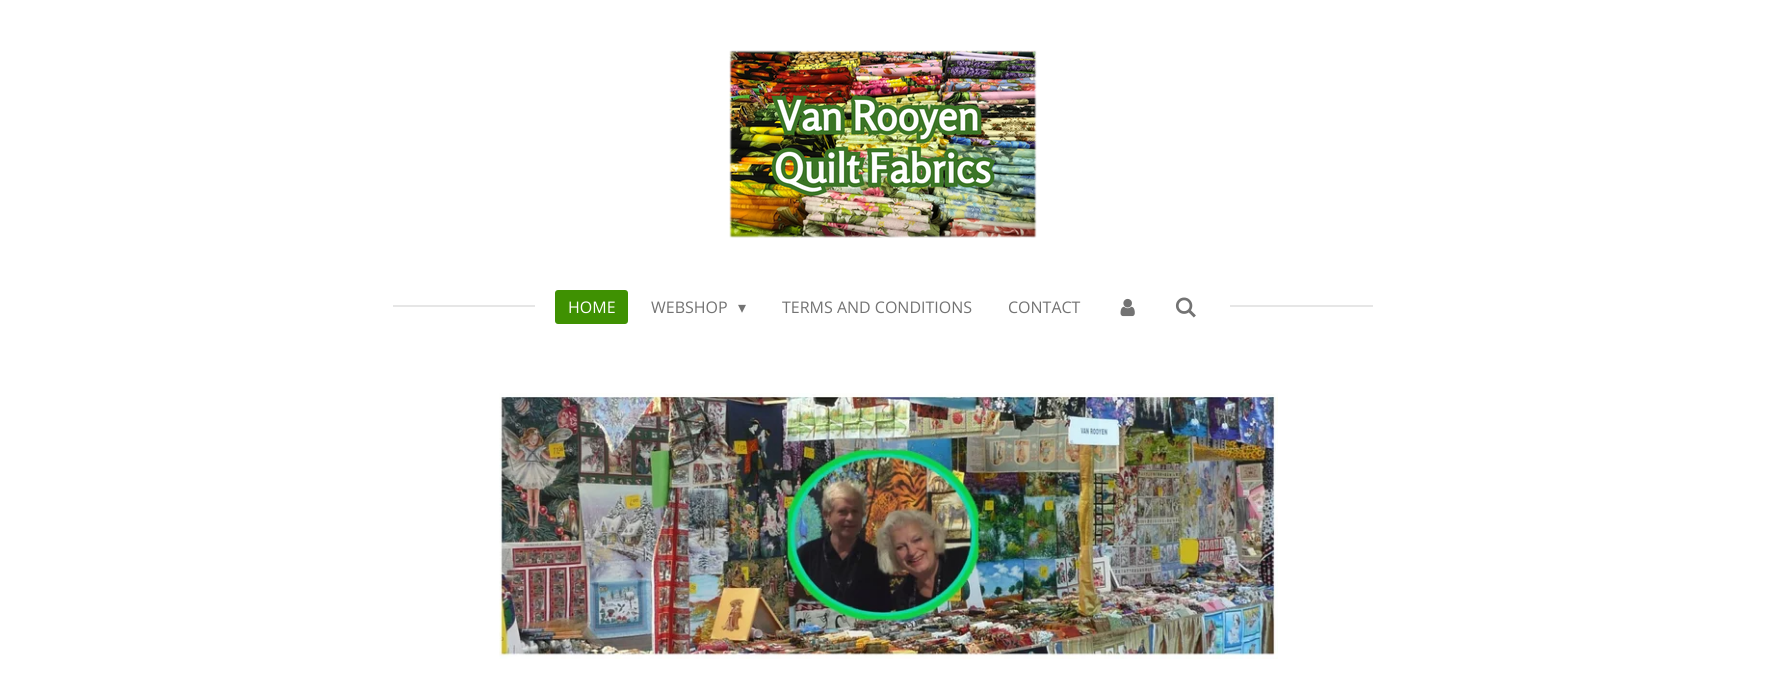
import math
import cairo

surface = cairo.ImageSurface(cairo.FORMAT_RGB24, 1765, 674)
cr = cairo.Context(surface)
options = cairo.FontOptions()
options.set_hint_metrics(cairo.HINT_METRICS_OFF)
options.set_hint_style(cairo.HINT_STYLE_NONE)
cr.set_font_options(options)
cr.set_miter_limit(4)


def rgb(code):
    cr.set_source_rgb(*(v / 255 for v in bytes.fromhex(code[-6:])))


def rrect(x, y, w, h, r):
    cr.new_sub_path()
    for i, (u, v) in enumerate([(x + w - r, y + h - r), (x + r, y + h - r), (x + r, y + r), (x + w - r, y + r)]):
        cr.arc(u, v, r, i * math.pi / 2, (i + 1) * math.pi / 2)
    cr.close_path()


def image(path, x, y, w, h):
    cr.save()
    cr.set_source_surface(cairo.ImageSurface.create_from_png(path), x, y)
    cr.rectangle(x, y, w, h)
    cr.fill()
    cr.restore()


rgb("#ffffff")
cr.paint()
image("img/1.png", 729, 50, 308, 188)
rgb("#e6e6e6")
cr.rectangle(393, 305, 142, 2)
cr.fill()
rgb("#3f9102")
rrect(555, 290, 73, 34, 3)
cr.fill()
image("img/2.png", 1120, 298, 15, 19)
image("img/3.png", 1175, 297, 21, 21)
rgb("#e6e6e6")
cr.rectangle(1230, 305, 143, 2)
cr.fill()
image("img/4.png", 499, 393, 779, 266)
cr.select_font_face("Open Sans")
cr.set_font_size(16)
rgb("#ffffff")
cr.move_to(568, 313)
cr.show_text("HOME")
rgb("#737373")
cr.move_to(651, 313)
cr.show_text("WEBSHOP")
cr.select_font_face("DejaVu Sans")
cr.move_to(738, 313)
cr.show_text("▾")
cr.select_font_face("Open Sans")
cr.move_to(782, 313)
cr.show_text("TERMS AND CONDITIONS")
cr.move_to(1008, 313)
cr.show_text("CONTACT")
surface.write_to_png("page.png")
